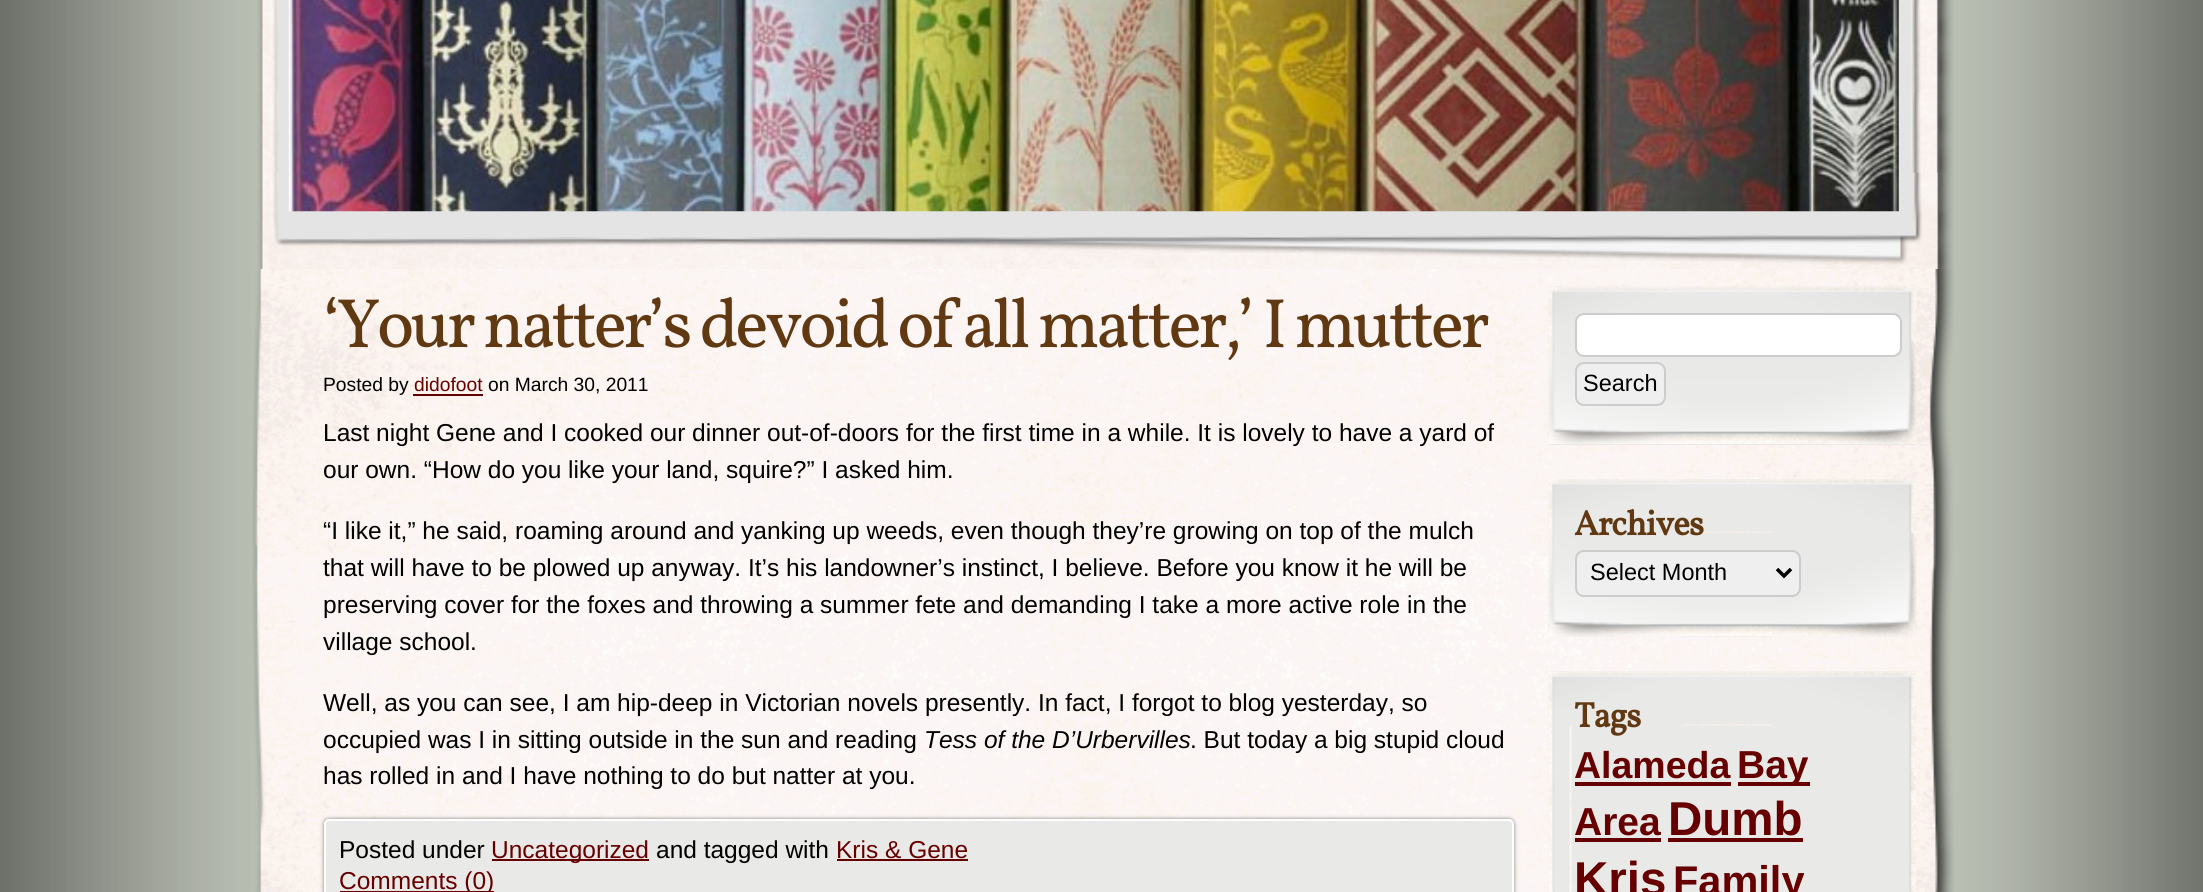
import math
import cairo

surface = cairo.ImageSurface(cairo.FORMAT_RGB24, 2203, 892)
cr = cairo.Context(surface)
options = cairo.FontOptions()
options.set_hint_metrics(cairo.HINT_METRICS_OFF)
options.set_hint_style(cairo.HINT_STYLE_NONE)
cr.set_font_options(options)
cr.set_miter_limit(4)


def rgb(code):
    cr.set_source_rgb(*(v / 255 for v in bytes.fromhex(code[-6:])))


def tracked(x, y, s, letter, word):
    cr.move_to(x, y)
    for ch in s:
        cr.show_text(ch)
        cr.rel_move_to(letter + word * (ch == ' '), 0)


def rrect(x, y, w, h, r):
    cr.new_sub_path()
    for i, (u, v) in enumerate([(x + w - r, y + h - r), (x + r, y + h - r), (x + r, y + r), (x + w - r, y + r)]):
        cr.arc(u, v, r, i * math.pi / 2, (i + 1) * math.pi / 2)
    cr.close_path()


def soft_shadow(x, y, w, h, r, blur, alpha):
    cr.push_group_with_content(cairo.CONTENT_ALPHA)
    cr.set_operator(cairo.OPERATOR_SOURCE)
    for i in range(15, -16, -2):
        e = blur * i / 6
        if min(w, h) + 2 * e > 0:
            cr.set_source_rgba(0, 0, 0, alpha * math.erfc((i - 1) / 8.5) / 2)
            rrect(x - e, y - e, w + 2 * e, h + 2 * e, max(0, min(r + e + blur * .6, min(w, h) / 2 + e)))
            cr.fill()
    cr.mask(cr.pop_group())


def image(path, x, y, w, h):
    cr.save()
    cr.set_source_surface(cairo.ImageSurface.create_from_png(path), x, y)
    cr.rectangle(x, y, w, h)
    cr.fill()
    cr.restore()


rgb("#bbc0b5")
cr.paint()
image("img/1.png", 0, 0, 2203, 892)
image("img/2.png", 257, 0, 1697, 269)
image("img/3.png", 268, 172, 1670, 97)
image("img/4.png", 288, 0, 1611, 212)
image("img/5.png", 252, 269, 1702, 623)
rgb("#660000")
cr.rectangle(413, 394, 70, 2)
cr.fill()
rgb("#000000")
soft_shadow(324, 819, 1190, 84, 5, 2, 0.5)
rgb("#e9e9e8")
rrect(325, 820, 1188, 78, 4)
cr.fill_preserve()
rgb("#ffffff")
cr.stroke()
for x, y, w, h, color in [
    (492, 859, 157, 2, "#660000"),
    (837, 859, 131, 2, "#660000"),
    (340, 891, 154, 1, "#660000"),
    (1549, 444, 367, 1, "#e9e9e8"),
]:
    rgb(color)
    cr.rectangle(x, y, w, h)
    cr.fill()
image("img/6.png", 1548, 286, 369, 158)
rgb("#ffffff")
rrect(1576, 314, 325, 42, 8)
cr.fill_preserve()
rgb("#cccccc")
cr.stroke()
rgb("#efefef")
rrect(1576, 363, 89, 42, 8)
cr.fill_preserve()
rgb("#cccccc")
cr.stroke()
rgb("#e9e9e8")
cr.rectangle(1549, 636, 367, 1)
cr.fill()
image("img/7.png", 1548, 479, 369, 158)
rgb("#efefef")
rrect(1576, 551, 224, 45, 8)
cr.fill_preserve()
rgb("#cccccc")
cr.stroke()
cr.new_path()
cr.move_to(1777, 569)
cr.line_to(1784, 576)
cr.line_to(1791, 569)
rgb("#000000")
cr.set_line_width(3.5)
cr.stroke()
rgb("#e9e9e8")
cr.rectangle(1571, 725, 325, 167)
cr.fill()
image("img/8.png", 1548, 671, 369, 221)
for x, y, w, h, color in [
    (1575, 782, 156, 4, "#660000"),
    (1738, 782, 72, 4, "#660000"),
    (1575, 838, 86, 4, "#660000"),
    (1668, 838, 135, 4, "#660000"),
]:
    rgb(color)
    cr.rectangle(x, y, w, h)
    cr.fill()
cr.select_font_face("Vollkorn")
cr.set_font_size(70)
rgb("#603913")
tracked(323, 347, "‘Your natter’s devoid of all matter,’ I mutter", -3.5, 0)
cr.select_font_face("Liberation Sans")
cr.set_font_size(19.25)
rgb("#000000")
cr.move_to(323, 391)
cr.show_text("Posted by")
rgb("#660000")
cr.move_to(414, 391)
cr.show_text("didofoot")
rgb("#000000")
cr.move_to(488, 391)
cr.show_text("on March 30, 2011")
cr.set_font_size(24.5)
for x, y, s in [
    (323, 441, "Last night Gene and I cooked our dinner out-of-doors for the first time in a while. It is lovely to have a yard of"),
    (323, 478, "our own. “How do you like your land, squire?” I asked him."),
    (323, 539, "“I like it,” he said, roaming around and yanking up weeds, even though they’re growing on top of the mulch"),
    (323, 576, "that will have to be plowed up anyway. It’s his landowner’s instinct, I believe. Before you know it he will be"),
    (323, 613, "preserving cover for the foxes and throwing a summer fete and demanding I take a more active role in the"),
    (323, 650, "village school."),
    (323, 711, "Well, as you can see, I am hip-deep in Victorian novels presently. In fact, I forgot to blog yesterday, so"),
    (323, 748, "occupied was I in sitting outside in the sun and reading"),
]:
    cr.move_to(x, y)
    cr.show_text(s)
cr.select_font_face("Liberation Sans", cairo.FONT_SLANT_ITALIC)
cr.move_to(924, 748)
cr.show_text("Tess of the D’Urbervilles")
cr.select_font_face("Liberation Sans")
for x, y, s in [
    (1190, 748, ". But today a big stupid cloud"),
    (323, 784, "has rolled in and I have nothing to do but natter at you."),
    (339, 858, "Posted under"),
]:
    cr.move_to(x, y)
    cr.show_text(s)
rgb("#660000")
cr.move_to(491, 858)
cr.show_text("Uncategorized")
rgb("#000000")
cr.move_to(656, 858)
cr.show_text("and tagged with")
rgb("#660000")
cr.move_to(836, 858)
cr.show_text("Kris & Gene")
cr.move_to(339, 889)
cr.show_text("Comments (0)")
cr.set_font_size(23.5)
rgb("#000000")
cr.move_to(1583, 391)
cr.show_text("Search")
cr.select_font_face("Vollkorn", cairo.FONT_SLANT_NORMAL, cairo.FONT_WEIGHT_BOLD)
cr.set_font_size(35)
rgb("#603913")
tracked(1574, 535, "Archives", -1, 0)
cr.select_font_face("Liberation Sans")
cr.set_font_size(23.5)
rgb("#000000")
cr.move_to(1590, 580)
cr.show_text("Select Month")
cr.select_font_face("Vollkorn", cairo.FONT_SLANT_NORMAL, cairo.FONT_WEIGHT_BOLD)
cr.set_font_size(35)
rgb("#603913")
tracked(1574, 727, "Tags", -1, 0)
cr.select_font_face("Liberation Sans", cairo.FONT_SLANT_NORMAL, cairo.FONT_WEIGHT_BOLD)
cr.set_font_size(37.5)
rgb("#660000")
cr.move_to(1574, 778)
cr.show_text("Alameda")
cr.set_font_size(39)
cr.move_to(1737, 778)
cr.show_text("Bay")
cr.move_to(1574, 835)
cr.show_text("Area")
cr.set_font_size(47.5)
cr.move_to(1668, 835)
cr.show_text("Dumb")
cr.move_to(1574, 895)
cr.show_text("Kris")
cr.set_font_size(41.5)
cr.move_to(1673, 895)
cr.show_text("Family")
surface.write_to_png("page.png")
